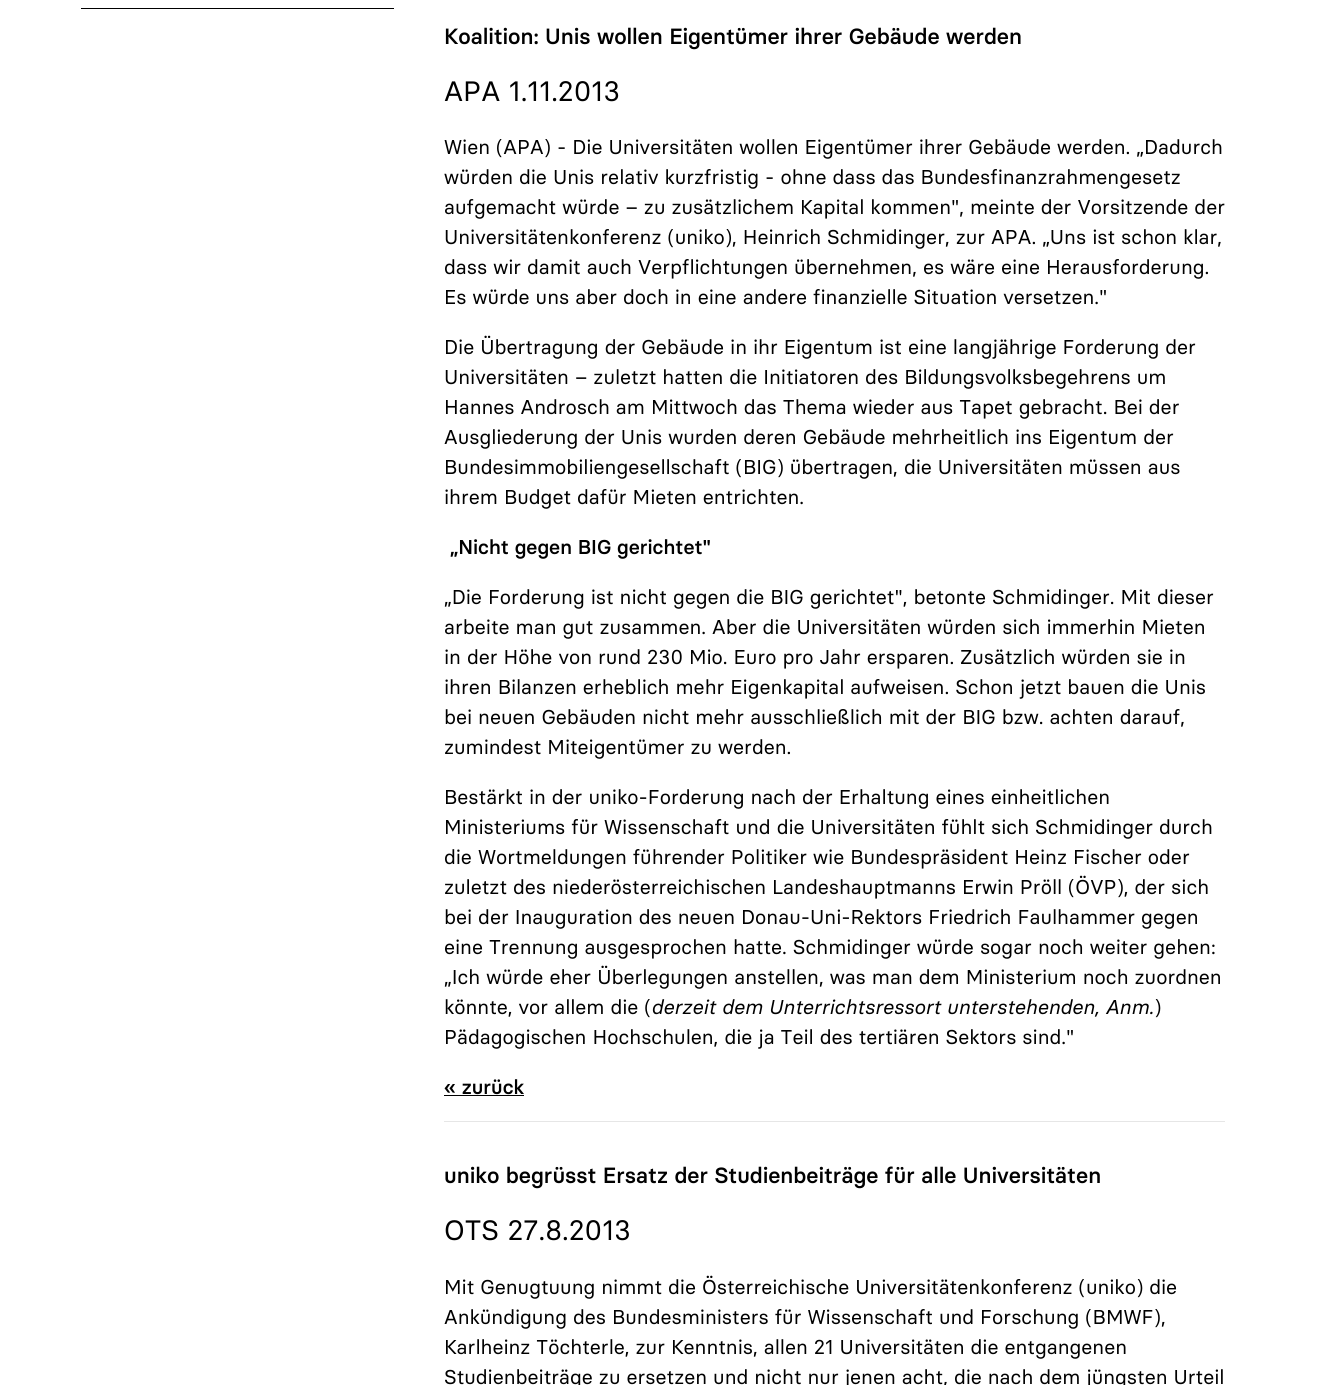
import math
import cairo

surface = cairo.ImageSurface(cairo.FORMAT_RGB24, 1325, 1385)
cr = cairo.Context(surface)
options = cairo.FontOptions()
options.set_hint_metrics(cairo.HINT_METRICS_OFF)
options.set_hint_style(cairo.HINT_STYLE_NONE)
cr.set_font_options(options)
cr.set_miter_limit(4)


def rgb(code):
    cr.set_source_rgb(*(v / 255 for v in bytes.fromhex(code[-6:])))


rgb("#ffffff")
cr.paint()
for x, y, w, h, color in [
    (81, 8, 313, 1, "#000000"),
    (444, 1095, 80, 1, "#000000"),
    (444, 1121, 781, 1, "#e6e6e6"),
]:
    rgb(color)
    cr.rectangle(x, y, w, h)
    cr.fill()
cr.select_font_face("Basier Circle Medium")
cr.set_font_size(22)
rgb("#000000")
cr.move_to(444, 44)
cr.show_text("Koalition: Unis wollen Eigentümer ihrer Gebäude werden")
cr.select_font_face("Basier Circle")
cr.set_font_size(28)
cr.move_to(444, 101)
cr.show_text("APA 1.11.2013")
cr.set_font_size(20)
for x, y, s in [
    (444, 154, "Wien (APA) - Die Universitäten wollen Eigentümer ihrer Gebäude werden. „Dadurch"),
    (444, 184, "würden die Unis relativ kurzfristig - ohne dass das Bundesfinanzrahmengesetz"),
    (444, 214, "aufgemacht würde – zu zusätzlichem Kapital kommen\", meinte der Vorsitzende der"),
    (444, 244, "Universitätenkonferenz (uniko), Heinrich Schmidinger, zur APA. „Uns ist schon klar,"),
    (444, 274, "dass wir damit auch Verpflichtungen übernehmen, es wäre eine Herausforderung."),
    (444, 304, "Es würde uns aber doch in eine andere finanzielle Situation versetzen.\""),
    (444, 354, "Die Übertragung der Gebäude in ihr Eigentum ist eine langjährige Forderung der"),
    (444, 384, "Universitäten – zuletzt hatten die Initiatoren des Bildungsvolksbegehrens um"),
    (444, 414, "Hannes Androsch am Mittwoch das Thema wieder aus Tapet gebracht. Bei der"),
    (444, 444, "Ausgliederung der Unis wurden deren Gebäude mehrheitlich ins Eigentum der"),
    (444, 474, "Bundesimmobiliengesellschaft (BIG) übertragen, die Universitäten müssen aus"),
    (444, 504, "ihrem Budget dafür Mieten entrichten."),
]:
    cr.move_to(x, y)
    cr.show_text(s)
cr.select_font_face("Basier Circle Medium")
cr.move_to(450, 554)
cr.show_text("„Nicht gegen BIG gerichtet\"")
cr.select_font_face("Basier Circle")
for x, y, s in [
    (444, 604, "„Die Forderung ist nicht gegen die BIG gerichtet\", betonte Schmidinger. Mit dieser"),
    (444, 634, "arbeite man gut zusammen. Aber die Universitäten würden sich immerhin Mieten"),
    (444, 664, "in der Höhe von rund 230 Mio. Euro pro Jahr ersparen. Zusätzlich würden sie in"),
    (444, 694, "ihren Bilanzen erheblich mehr Eigenkapital aufweisen. Schon jetzt bauen die Unis"),
    (444, 724, "bei neuen Gebäuden nicht mehr ausschließlich mit der BIG bzw. achten darauf,"),
    (444, 754, "zumindest Miteigentümer zu werden."),
    (444, 804, "Bestärkt in der uniko-Forderung nach der Erhaltung eines einheitlichen"),
    (444, 834, "Ministeriums für Wissenschaft und die Universitäten fühlt sich Schmidinger durch"),
    (444, 864, "die Wortmeldungen führender Politiker wie Bundespräsident Heinz Fischer oder"),
    (444, 894, "zuletzt des niederösterreichischen Landeshauptmanns Erwin Pröll (ÖVP), der sich"),
    (444, 924, "bei der Inauguration des neuen Donau-Uni-Rektors Friedrich Faulhammer gegen"),
    (444, 954, "eine Trennung ausgesprochen hatte. Schmidinger würde sogar noch weiter gehen:"),
    (444, 984, "„Ich würde eher Überlegungen anstellen, was man dem Ministerium noch zuordnen"),
    (444, 1014, "könnte, vor allem die ("),
]:
    cr.move_to(x, y)
    cr.show_text(s)
cr.select_font_face("Basier Circle", cairo.FONT_SLANT_ITALIC)
cr.move_to(651, 1014)
cr.show_text("derzeit dem Unterrichtsressort unterstehenden, Anm.")
cr.select_font_face("Basier Circle")
cr.move_to(1154, 1014)
cr.show_text(")")
cr.move_to(444, 1044)
cr.show_text("Pädagogischen Hochschulen, die ja Teil des tertiären Sektors sind.\"")
cr.select_font_face("Basier Circle Medium")
cr.move_to(444, 1094)
cr.show_text("« zurück")
cr.set_font_size(22)
cr.move_to(444, 1183)
cr.show_text("uniko begrüsst Ersatz der Studienbeiträge für alle Universitäten")
cr.select_font_face("Basier Circle")
cr.set_font_size(28)
cr.move_to(444, 1240)
cr.show_text("OTS 27.8.2013")
cr.set_font_size(20)
for x, y, s in [
    (444, 1294, "Mit Genugtuung nimmt die Österreichische Universitätenkonferenz (uniko) die"),
    (444, 1324, "Ankündigung des Bundesministers für Wissenschaft und Forschung (BMWF),"),
    (444, 1354, "Karlheinz Töchterle, zur Kenntnis, allen 21 Universitäten die entgangenen"),
    (444, 1384, "Studienbeiträge zu ersetzen und nicht nur jenen acht, die nach dem jüngsten Urteil"),
]:
    cr.move_to(x, y)
    cr.show_text(s)
surface.write_to_png("page.png")
